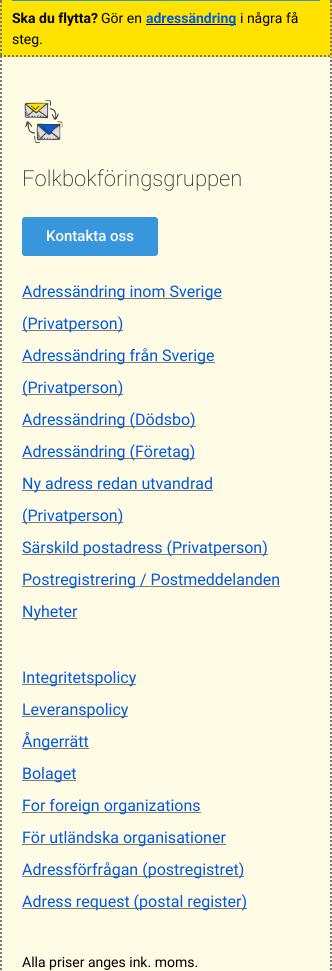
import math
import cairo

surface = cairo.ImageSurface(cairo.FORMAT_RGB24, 332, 971)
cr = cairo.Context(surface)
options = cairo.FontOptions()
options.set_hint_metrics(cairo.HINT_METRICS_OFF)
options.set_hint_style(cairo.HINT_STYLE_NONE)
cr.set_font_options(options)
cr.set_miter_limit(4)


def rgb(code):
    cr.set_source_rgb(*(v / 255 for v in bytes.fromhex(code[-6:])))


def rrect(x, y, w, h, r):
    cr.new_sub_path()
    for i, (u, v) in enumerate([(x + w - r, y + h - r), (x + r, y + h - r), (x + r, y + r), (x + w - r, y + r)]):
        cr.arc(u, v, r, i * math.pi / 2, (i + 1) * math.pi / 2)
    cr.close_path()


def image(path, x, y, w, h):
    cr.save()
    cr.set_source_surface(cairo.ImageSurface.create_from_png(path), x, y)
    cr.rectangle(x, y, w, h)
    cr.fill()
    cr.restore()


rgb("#ffe200")
cr.paint()
cr.new_path()
cr.move_to(331, -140)
cr.line_to(331, 14)
rgb("#777777")
cr.set_dash([2, 2])
cr.stroke()
cr.new_path()
cr.move_to(1, -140)
cr.line_to(1, 14)
cr.stroke()
rgb("#3795bd")
rrect(12, -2, 308, 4, 2)
cr.fill()
rgb("#fffbe4")
cr.rectangle(0, 57, 332, 914)
cr.fill()
cr.new_path()
cr.move_to(331, 44)
cr.line_to(331, 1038)
rgb("#777777")
cr.stroke()
cr.new_path()
cr.move_to(1, 44)
cr.line_to(1, 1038)
cr.stroke()
rgb("#ffe200")
cr.rectangle(0, 1, 332, 56)
cr.fill()
cr.new_path()
cr.move_to(331, 1)
cr.line_to(331, 57)
rgb("#777777")
cr.stroke()
cr.new_path()
cr.move_to(0, 56)
cr.line_to(332, 56)
cr.stroke()
cr.new_path()
cr.move_to(1, 1)
cr.line_to(1, 57)
cr.stroke()
rgb("#000000")
cr.rectangle(146, 24, 90, 1)
cr.fill()
image("img/1.png", 24, 100, 39, 43)
rgb("#3896dd")
rrect(22, 217, 136, 39, 3)
cr.fill()
for x, y, w, h, color in [
    (22, 298, 200, 1, "#7a7a7a"),
    (22, 330, 101, 1, "#7a7a7a"),
    (22, 362, 193, 1, "#7a7a7a"),
    (22, 394, 101, 1, "#7a7a7a"),
    (22, 426, 174, 1, "#7a7a7a"),
    (22, 458, 173, 1, "#7a7a7a"),
    (22, 490, 191, 1, "#7a7a7a"),
    (22, 522, 101, 1, "#7a7a7a"),
    (22, 554, 246, 1, "#7a7a7a"),
    (22, 586, 258, 1, "#7a7a7a"),
    (22, 618, 55, 1, "#7a7a7a"),
    (22, 684, 114, 1, "#7a7a7a"),
    (22, 716, 106, 1, "#7a7a7a"),
    (22, 748, 67, 1, "#7a7a7a"),
    (22, 780, 54, 1, "#7a7a7a"),
    (22, 812, 179, 1, "#7a7a7a"),
    (22, 844, 204, 1, "#7a7a7a"),
    (22, 876, 222, 1, "#7a7a7a"),
    (22, 908, 225, 1, "#7a7a7a"),
]:
    rgb(color)
    cr.rectangle(x, y, w, h)
    cr.fill()
cr.select_font_face("Roboto", cairo.FONT_SLANT_NORMAL, cairo.FONT_WEIGHT_BOLD)
cr.set_font_size(14)
rgb("#000000")
cr.move_to(12, 23)
cr.show_text("Ska du flytta?")
cr.select_font_face("Roboto")
cr.move_to(101, 23)
cr.show_text("Gör en")
cr.select_font_face("Roboto", cairo.FONT_SLANT_NORMAL, cairo.FONT_WEIGHT_BOLD)
rgb("#005ae1")
cr.move_to(146, 23)
cr.show_text("adressändring")
cr.select_font_face("Roboto")
rgb("#000000")
cr.move_to(240, 23)
cr.show_text("i några få")
cr.move_to(12, 44)
cr.show_text("steg.")
cr.select_font_face("Roboto ExtraLight")
cr.set_font_size(22)
rgb("#333333")
cr.move_to(22, 186)
cr.show_text("Folkbokföringsgruppen")
cr.select_font_face("Roboto Medium")
cr.set_font_size(15)
rgb("#ffffff")
cr.move_to(46, 241)
cr.show_text("Kontakta oss")
cr.select_font_face("Roboto")
cr.set_font_size(16)
rgb("#005ae1")
for x, y, s in [
    (22, 297, "Adressändring inom Sverige"),
    (22, 329, "(Privatperson)"),
    (22, 361, "Adressändring från Sverige"),
    (22, 393, "(Privatperson)"),
    (22, 425, "Adressändring (Dödsbo)"),
    (22, 457, "Adressändring (Företag)"),
    (22, 489, "Ny adress redan utvandrad"),
    (22, 521, "(Privatperson)"),
    (22, 553, "Särskild postadress (Privatperson)"),
    (22, 585, "Postregistrering / Postmeddelanden"),
    (22, 617, "Nyheter"),
    (22, 683, "Integritetspolicy"),
    (22, 715, "Leveranspolicy"),
    (22, 747, "Ångerrätt"),
    (22, 779, "Bolaget"),
    (22, 811, "For foreign organizations"),
    (22, 843, "För utländska organisationer"),
    (22, 875, "Adressförfrågan (postregistret)"),
    (22, 907, "Adress request (postal register)"),
]:
    cr.move_to(x, y)
    cr.show_text(s)
cr.set_font_size(14)
rgb("#000000")
cr.move_to(22, 967)
cr.show_text("Alla priser anges ink. moms.")
surface.write_to_png("page.png")
